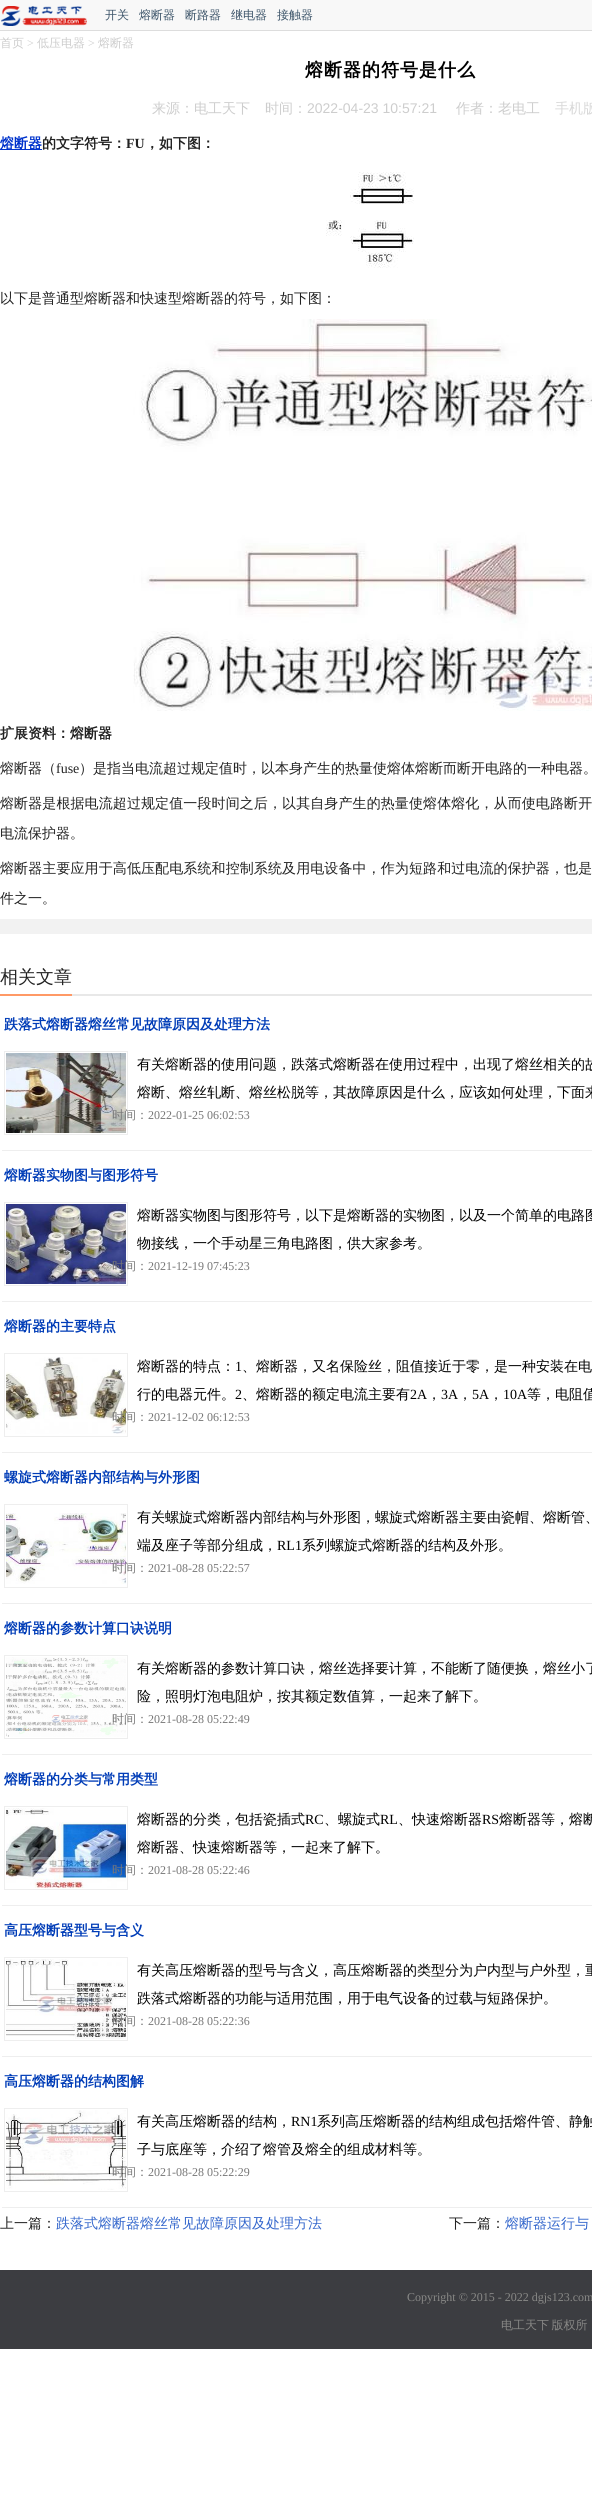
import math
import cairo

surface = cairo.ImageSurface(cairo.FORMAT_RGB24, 592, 2499)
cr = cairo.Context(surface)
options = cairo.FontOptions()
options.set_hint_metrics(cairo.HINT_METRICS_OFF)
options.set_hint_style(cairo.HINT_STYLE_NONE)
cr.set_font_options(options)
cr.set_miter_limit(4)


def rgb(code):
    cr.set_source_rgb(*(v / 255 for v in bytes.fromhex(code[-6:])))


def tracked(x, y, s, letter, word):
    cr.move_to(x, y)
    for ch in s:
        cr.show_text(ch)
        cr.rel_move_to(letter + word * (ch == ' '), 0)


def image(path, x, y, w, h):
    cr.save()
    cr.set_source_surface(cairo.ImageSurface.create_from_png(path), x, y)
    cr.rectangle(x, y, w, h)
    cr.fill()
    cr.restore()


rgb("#ffffff")
cr.paint()
rgb("#f8f8f8")
cr.rectangle(0, 0, 592, 30)
cr.fill()
rgb("#dddddd")
cr.rectangle(0, 30, 592, 1)
cr.fill()
image("img/1.png", 1, 6, 86, 20)
rgb("#0033cc")
cr.rectangle(0, 149, 42, 1)
cr.fill()
image("img/2.png", 326, 172, 88, 96)
image("img/3.png", 133, 319, 459, 392)
for x, y, w, h, color in [
    (0, 919, 592, 15, "#f2f2f2"),
    (72, 994, 520, 2, "#e8e8e8"),
    (0, 994, 72, 2, "#ff9966"),
    (2, 1150, 590, 1, "#eeeeee"),
]:
    rgb(color)
    cr.rectangle(x, y, w, h)
    cr.fill()
cr.rectangle(4.5, 1051.5, 123, 83)
cr.set_line_width(1)
cr.stroke()
image("img/4.png", 6, 1053, 120, 80)
cr.rectangle(2, 1301, 590, 1)
cr.fill()
cr.rectangle(4.5, 1202.5, 123, 83)
cr.stroke()
image("img/5.png", 6, 1204, 120, 80)
cr.rectangle(2, 1452, 590, 1)
cr.fill()
cr.rectangle(4.5, 1353.5, 123, 83)
cr.stroke()
image("img/6.png", 6, 1357, 120, 77)
cr.rectangle(2, 1603, 590, 1)
cr.fill()
cr.rectangle(4.5, 1504.5, 123, 83)
cr.stroke()
image("img/7.png", 6, 1513, 120, 71)
cr.rectangle(2, 1754, 590, 1)
cr.fill()
cr.rectangle(4.5, 1655.5, 123, 83)
cr.stroke()
image("img/8.png", 6, 1657, 120, 80)
cr.rectangle(2, 1905, 590, 1)
cr.fill()
cr.rectangle(4.5, 1806.5, 123, 83)
cr.stroke()
image("img/9.png", 6, 1808, 120, 80)
cr.rectangle(2, 2056, 590, 1)
cr.fill()
cr.rectangle(4.5, 1957.5, 123, 83)
cr.stroke()
image("img/10.png", 6, 1959, 120, 80)
cr.rectangle(2, 2207, 590, 1)
cr.fill()
cr.rectangle(4.5, 2108.5, 123, 83)
cr.stroke()
image("img/11.png", 6, 2110, 120, 80)
rgb("#3c3d41")
cr.rectangle(0, 2270, 592, 79)
cr.fill()
cr.select_font_face("WenQuanYi Zen Hei Medium")
cr.set_font_size(12)
rgb("#3d556a")
for x, y, s in [
    (105, 19, "开关"),
    (139, 19, "熔断器"),
    (185, 19, "断路器"),
    (231, 19, "继电器"),
    (277, 19, "接触器"),
]:
    cr.move_to(x, y)
    cr.show_text(s)
rgb("#cdcdcd")
cr.move_to(0, 47)
cr.show_text("首页")
cr.select_font_face("Liberation Serif")
cr.move_to(27, 47)
cr.show_text(">")
cr.select_font_face("WenQuanYi Zen Hei Medium")
cr.move_to(37, 47)
cr.show_text("低压电器")
cr.select_font_face("Liberation Serif")
cr.move_to(88, 47)
cr.show_text(">")
cr.select_font_face("WenQuanYi Zen Hei Medium")
cr.move_to(98, 47)
cr.show_text("熔断器")
cr.select_font_face("WenQuanYi Zen Hei", cairo.FONT_SLANT_NORMAL, cairo.FONT_WEIGHT_BOLD)
cr.set_font_size(18)
rgb("#000000")
tracked(305, 76, "熔断器的符号是什么", 1, 0)
cr.select_font_face("WenQuanYi Zen Hei Medium")
cr.set_font_size(14)
rgb("#cdcdcd")
cr.move_to(152, 113)
cr.show_text("来源：电工天下")
cr.move_to(265, 113)
cr.show_text("时间：")
cr.select_font_face("Liberation Sans")
cr.move_to(307, 113)
cr.show_text("2022-04-23 10:57:21")
cr.select_font_face("WenQuanYi Zen Hei Medium")
cr.move_to(456, 113)
cr.show_text("作者：老电工")
rgb("#d8d8d8")
cr.move_to(555, 113)
cr.show_text("手机版")
cr.select_font_face("WenQuanYi Zen Hei", cairo.FONT_SLANT_NORMAL, cairo.FONT_WEIGHT_BOLD)
rgb("#0033cc")
cr.move_to(0, 148)
cr.show_text("熔断器")
rgb("#222222")
cr.move_to(42, 148)
cr.show_text("的文字符号：")
cr.select_font_face("Liberation Serif", cairo.FONT_SLANT_NORMAL, cairo.FONT_WEIGHT_BOLD)
cr.move_to(126, 148)
cr.show_text("FU")
cr.select_font_face("WenQuanYi Zen Hei", cairo.FONT_SLANT_NORMAL, cairo.FONT_WEIGHT_BOLD)
cr.move_to(145, 148)
cr.show_text("，如下图：")
cr.select_font_face("WenQuanYi Zen Hei Medium")
cr.move_to(0, 303)
cr.show_text("以下是普通型熔断器和快速型熔断器的符号，如下图：")
cr.select_font_face("WenQuanYi Zen Hei", cairo.FONT_SLANT_NORMAL, cairo.FONT_WEIGHT_BOLD)
cr.move_to(0, 738)
cr.show_text("扩展资料：熔断器")
cr.select_font_face("WenQuanYi Zen Hei Medium")
cr.move_to(0, 773)
cr.show_text("熔断器（")
cr.select_font_face("Liberation Serif")
cr.move_to(56, 773)
cr.show_text("fuse")
cr.select_font_face("WenQuanYi Zen Hei Medium")
cr.move_to(79, 773)
cr.show_text("）是指当电流超过规定值时，以本身产生的热量使熔体熔断而断开电路的一种电器。")
tracked(0, 808, "熔断器是根据电流超过规定值一段时间之后，以其自身产生的热量使熔体熔化，从而使电路断开", 0.1, 0)
cr.move_to(0, 838)
cr.show_text("电流保护器。")
tracked(0, 873, "熔断器主要应用于高低压配电系统和控制系统及用电设备中，作为短路和过电流的保护器，也是", 0.1, 0)
cr.move_to(0, 903)
cr.show_text("件之一。")
cr.set_font_size(18)
cr.move_to(0, 983)
cr.show_text("相关文章")
cr.select_font_face("WenQuanYi Zen Hei", cairo.FONT_SLANT_NORMAL, cairo.FONT_WEIGHT_BOLD)
cr.set_font_size(14)
rgb("#003cb7")
cr.move_to(4, 1029)
cr.show_text("跌落式熔断器熔丝常见故障原因及处理方法")
cr.select_font_face("WenQuanYi Zen Hei Medium")
rgb("#000000")
cr.move_to(137, 1069)
cr.show_text("有关熔断器的使用问题，跌落式熔断器在使用过程中，出现了熔丝相关的故")
cr.move_to(137, 1097)
cr.show_text("熔断、熔丝轧断、熔丝松脱等，其故障原因是什么，应该如何处理，下面来")
cr.set_font_size(12)
rgb("#777777")
cr.move_to(112, 1119)
cr.show_text("时间：")
cr.select_font_face("Liberation Serif")
cr.move_to(148, 1119)
cr.show_text("2022-01-25 06:02:53")
cr.select_font_face("WenQuanYi Zen Hei", cairo.FONT_SLANT_NORMAL, cairo.FONT_WEIGHT_BOLD)
cr.set_font_size(14)
rgb("#003cb7")
cr.move_to(4, 1180)
cr.show_text("熔断器实物图与图形符号")
cr.select_font_face("WenQuanYi Zen Hei Medium")
rgb("#000000")
cr.move_to(137, 1220)
cr.show_text("熔断器实物图与图形符号，以下是熔断器的实物图，以及一个简单的电路图")
cr.move_to(137, 1248)
cr.show_text("物接线，一个手动星三角电路图，供大家参考。")
cr.set_font_size(12)
rgb("#777777")
cr.move_to(112, 1270)
cr.show_text("时间：")
cr.select_font_face("Liberation Serif")
cr.move_to(148, 1270)
cr.show_text("2021-12-19 07:45:23")
cr.select_font_face("WenQuanYi Zen Hei", cairo.FONT_SLANT_NORMAL, cairo.FONT_WEIGHT_BOLD)
cr.set_font_size(14)
rgb("#003cb7")
cr.move_to(4, 1331)
cr.show_text("熔断器的主要特点")
cr.select_font_face("WenQuanYi Zen Hei Medium")
rgb("#000000")
cr.move_to(137, 1371)
cr.show_text("熔断器的特点：")
cr.select_font_face("Liberation Serif")
cr.move_to(235, 1371)
cr.show_text("1")
cr.select_font_face("WenQuanYi Zen Hei Medium")
cr.move_to(242, 1371)
cr.show_text("、熔断器，又名保险丝，阻值接近于零，是一种安装在电")
cr.move_to(137, 1399)
cr.show_text("行的电器元件。")
cr.select_font_face("Liberation Serif")
cr.move_to(235, 1399)
cr.show_text("2")
cr.select_font_face("WenQuanYi Zen Hei Medium")
cr.move_to(242, 1399)
cr.show_text("、熔断器的额定电流主要有")
cr.select_font_face("Liberation Serif")
cr.move_to(410, 1399)
cr.show_text("2A")
cr.select_font_face("WenQuanYi Zen Hei Medium")
cr.move_to(427, 1399)
cr.show_text("，")
cr.select_font_face("Liberation Serif")
cr.move_to(441, 1399)
cr.show_text("3A")
cr.select_font_face("WenQuanYi Zen Hei Medium")
cr.move_to(458, 1399)
cr.show_text("，")
cr.select_font_face("Liberation Serif")
cr.move_to(472, 1399)
cr.show_text("5A")
cr.select_font_face("WenQuanYi Zen Hei Medium")
cr.move_to(489, 1399)
cr.show_text("，")
cr.select_font_face("Liberation Serif")
cr.move_to(503, 1399)
cr.show_text("10A")
cr.select_font_face("WenQuanYi Zen Hei Medium")
cr.move_to(527, 1399)
cr.show_text("等，电阻值")
cr.set_font_size(12)
rgb("#777777")
cr.move_to(112, 1421)
cr.show_text("时间：")
cr.select_font_face("Liberation Serif")
cr.move_to(148, 1421)
cr.show_text("2021-12-02 06:12:53")
cr.select_font_face("WenQuanYi Zen Hei", cairo.FONT_SLANT_NORMAL, cairo.FONT_WEIGHT_BOLD)
cr.set_font_size(14)
rgb("#003cb7")
cr.move_to(4, 1482)
cr.show_text("螺旋式熔断器内部结构与外形图")
cr.select_font_face("WenQuanYi Zen Hei Medium")
rgb("#000000")
cr.move_to(137, 1522)
cr.show_text("有关螺旋式熔断器内部结构与外形图，螺旋式熔断器主要由瓷帽、熔断管、")
cr.move_to(137, 1550)
cr.show_text("端及座子等部分组成，")
cr.select_font_face("Liberation Serif")
cr.move_to(277, 1550)
cr.show_text("RL1")
cr.select_font_face("WenQuanYi Zen Hei Medium")
cr.move_to(302, 1550)
cr.show_text("系列螺旋式熔断器的结构及外形。")
cr.set_font_size(12)
rgb("#777777")
cr.move_to(112, 1572)
cr.show_text("时间：")
cr.select_font_face("Liberation Serif")
cr.move_to(148, 1572)
cr.show_text("2021-08-28 05:22:57")
cr.select_font_face("WenQuanYi Zen Hei", cairo.FONT_SLANT_NORMAL, cairo.FONT_WEIGHT_BOLD)
cr.set_font_size(14)
rgb("#003cb7")
cr.move_to(4, 1633)
cr.show_text("熔断器的参数计算口诀说明")
cr.select_font_face("WenQuanYi Zen Hei Medium")
rgb("#000000")
cr.move_to(137, 1673)
cr.show_text("有关熔断器的参数计算口诀，熔丝选择要计算，不能断了随便换，熔丝小了")
cr.move_to(137, 1701)
cr.show_text("险，照明灯泡电阻炉，按其额定数值算，一起来了解下。")
cr.set_font_size(12)
rgb("#777777")
cr.move_to(112, 1723)
cr.show_text("时间：")
cr.select_font_face("Liberation Serif")
cr.move_to(148, 1723)
cr.show_text("2021-08-28 05:22:49")
cr.select_font_face("WenQuanYi Zen Hei", cairo.FONT_SLANT_NORMAL, cairo.FONT_WEIGHT_BOLD)
cr.set_font_size(14)
rgb("#003cb7")
cr.move_to(4, 1784)
cr.show_text("熔断器的分类与常用类型")
cr.select_font_face("WenQuanYi Zen Hei Medium")
rgb("#000000")
cr.move_to(137, 1824)
cr.show_text("熔断器的分类，包括瓷插式")
cr.select_font_face("Liberation Serif")
cr.move_to(305, 1824)
cr.show_text("RC")
cr.select_font_face("WenQuanYi Zen Hei Medium")
cr.move_to(324, 1824)
cr.show_text("、螺旋式")
cr.select_font_face("Liberation Serif")
cr.move_to(380, 1824)
cr.show_text("RL")
cr.select_font_face("WenQuanYi Zen Hei Medium")
cr.move_to(398, 1824)
cr.show_text("、快速熔断器")
cr.select_font_face("Liberation Serif")
cr.move_to(482, 1824)
cr.show_text("RS")
cr.select_font_face("WenQuanYi Zen Hei Medium")
cr.move_to(499, 1824)
cr.show_text("熔断器等，熔断")
cr.move_to(137, 1852)
cr.show_text("熔断器、快速熔断器等，一起来了解下。")
cr.set_font_size(12)
rgb("#777777")
cr.move_to(112, 1874)
cr.show_text("时间：")
cr.select_font_face("Liberation Serif")
cr.move_to(148, 1874)
cr.show_text("2021-08-28 05:22:46")
cr.select_font_face("WenQuanYi Zen Hei", cairo.FONT_SLANT_NORMAL, cairo.FONT_WEIGHT_BOLD)
cr.set_font_size(14)
rgb("#003cb7")
cr.move_to(4, 1935)
cr.show_text("高压熔断器型号与含义")
cr.select_font_face("WenQuanYi Zen Hei Medium")
rgb("#000000")
cr.move_to(137, 1975)
cr.show_text("有关高压熔断器的型号与含义，高压熔断器的类型分为户内型与户外型，重")
cr.move_to(137, 2003)
cr.show_text("跌落式熔断器的功能与适用范围，用于电气设备的过载与短路保护。")
cr.set_font_size(12)
rgb("#777777")
cr.move_to(112, 2025)
cr.show_text("时间：")
cr.select_font_face("Liberation Serif")
cr.move_to(148, 2025)
cr.show_text("2021-08-28 05:22:36")
cr.select_font_face("WenQuanYi Zen Hei", cairo.FONT_SLANT_NORMAL, cairo.FONT_WEIGHT_BOLD)
cr.set_font_size(14)
rgb("#003cb7")
cr.move_to(4, 2086)
cr.show_text("高压熔断器的结构图解")
cr.select_font_face("WenQuanYi Zen Hei Medium")
rgb("#000000")
cr.move_to(137, 2126)
cr.show_text("有关高压熔断器的结构，")
cr.select_font_face("Liberation Serif")
cr.move_to(291, 2126)
cr.show_text("RN1")
cr.select_font_face("WenQuanYi Zen Hei Medium")
cr.move_to(317, 2126)
cr.show_text("系列高压熔断器的结构组成包括熔件管、静触")
cr.move_to(137, 2154)
cr.show_text("子与底座等，介绍了熔管及熔全的组成材料等。")
cr.set_font_size(12)
rgb("#777777")
cr.move_to(112, 2176)
cr.show_text("时间：")
cr.select_font_face("Liberation Serif")
cr.move_to(148, 2176)
cr.show_text("2021-08-28 05:22:29")
cr.select_font_face("WenQuanYi Zen Hei Medium")
cr.set_font_size(14)
rgb("#222222")
cr.move_to(0, 2228)
cr.show_text("上一篇：")
rgb("#3366cc")
cr.move_to(56, 2228)
cr.show_text("跌落式熔断器熔丝常见故障原因及处理方法")
rgb("#222222")
cr.move_to(449, 2228)
cr.show_text("下一篇：")
rgb("#3366cc")
cr.move_to(505, 2228)
cr.show_text("熔断器运行与")
cr.select_font_face("Liberation Serif")
cr.set_font_size(12)
rgb("#888886")
cr.move_to(407, 2301)
cr.show_text("Copyright © 2015 - 2022 dgjs123.com")
cr.select_font_face("WenQuanYi Zen Hei Medium")
tracked(501, 2329, "电工天下 版权所", 0, -1)
surface.write_to_png("page.png")
